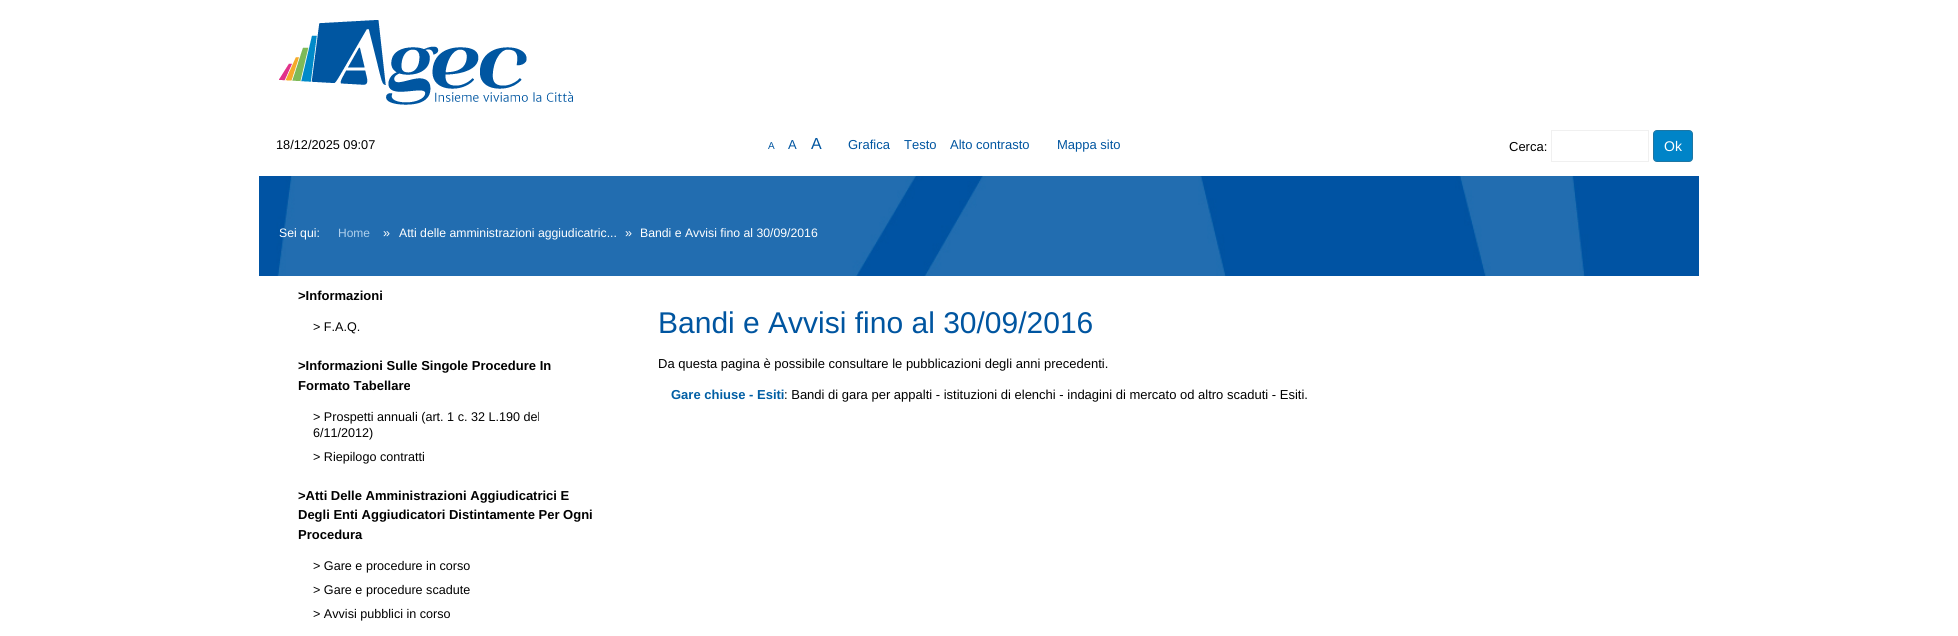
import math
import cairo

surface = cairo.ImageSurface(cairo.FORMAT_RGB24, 1958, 636)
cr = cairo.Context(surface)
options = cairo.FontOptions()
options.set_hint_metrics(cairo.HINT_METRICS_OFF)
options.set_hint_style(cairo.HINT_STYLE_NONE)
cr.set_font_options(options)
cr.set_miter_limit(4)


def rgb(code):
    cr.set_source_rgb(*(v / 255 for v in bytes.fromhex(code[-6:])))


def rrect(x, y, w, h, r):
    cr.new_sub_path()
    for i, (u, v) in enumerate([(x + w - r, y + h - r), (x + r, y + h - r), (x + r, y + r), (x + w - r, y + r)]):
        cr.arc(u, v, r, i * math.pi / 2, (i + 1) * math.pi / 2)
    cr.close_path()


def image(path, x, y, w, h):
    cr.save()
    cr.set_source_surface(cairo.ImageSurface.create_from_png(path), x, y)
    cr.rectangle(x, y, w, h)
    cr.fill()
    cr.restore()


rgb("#ffffff")
cr.paint()
image("img/1.png", 279, 20, 294, 85)
cr.rectangle(1551.5, 130.5, 97, 31)
rgb("#f0f0f0")
cr.set_line_width(1)
cr.stroke()
rgb("#0084c8")
rrect(1653.5, 130.5, 39, 31, 3.5)
cr.fill_preserve()
rgb("#1e76a3")
cr.stroke()
image("img/2.png", 259, 176, 1440, 100)
cr.select_font_face("Liberation Sans")
cr.set_font_size(10)
rgb("#0055a0")
cr.move_to(768, 149)
cr.show_text("A")
cr.set_font_size(13)
cr.move_to(788, 149)
cr.show_text("A")
cr.set_font_size(16)
cr.move_to(811, 149)
cr.show_text("A")
cr.set_font_size(13)
for x, y, s in [
    (848, 149, "Grafica"),
    (904, 149, "Testo"),
    (950, 149, "Alto contrasto"),
    (1057, 149, "Mappa sito"),
]:
    cr.move_to(x, y)
    cr.show_text(s)
cr.set_font_size(12.75)
rgb("#000000")
cr.move_to(276, 149)
cr.show_text("18/12/2025 09:07")
cr.set_font_size(13)
cr.move_to(1509, 151)
cr.show_text("Cerca:")
cr.set_font_size(14)
rgb("#ffffff")
cr.move_to(1664, 151)
cr.show_text("Ok")
cr.set_font_size(12.25)
cr.move_to(279, 237)
cr.show_text("Sei qui:")
cr.set_font_size(12)
rgb("#aecfec")
cr.move_to(338, 237)
cr.show_text("Home")
cr.set_font_size(12.6)
rgb("#ffffff")
cr.move_to(383, 237)
cr.show_text("»")
cr.set_font_size(12.25)
cr.move_to(399, 237)
cr.show_text("Atti delle amministrazioni aggiudicatric...")
cr.set_font_size(12.6)
cr.move_to(625, 237)
cr.show_text("»")
cr.set_font_size(12.25)
cr.move_to(640, 237)
cr.show_text("Bandi e Avvisi fino al 30/09/2016")
cr.select_font_face("Liberation Sans", cairo.FONT_SLANT_NORMAL, cairo.FONT_WEIGHT_BOLD)
cr.set_font_size(13)
rgb("#000000")
cr.move_to(298, 300)
cr.show_text(">Informazioni")
cr.select_font_face("Liberation Sans")
cr.set_font_size(12.6)
cr.move_to(313, 331)
cr.show_text("> F.A.Q.")
cr.select_font_face("Liberation Sans", cairo.FONT_SLANT_NORMAL, cairo.FONT_WEIGHT_BOLD)
cr.set_font_size(13)
cr.move_to(298, 370)
cr.show_text(">Informazioni Sulle Singole Procedure In")
cr.move_to(298, 390)
cr.show_text("Formato Tabellare")
cr.select_font_face("Liberation Sans")
cr.set_font_size(12.6)
for x, y, s in [
    (313, 421, "> Prospetti annuali (art. 1 c. 32 L.190 del"),
    (313, 437, "6/11/2012)"),
    (313, 461, "> Riepilogo contratti"),
]:
    cr.move_to(x, y)
    cr.show_text(s)
cr.select_font_face("Liberation Sans", cairo.FONT_SLANT_NORMAL, cairo.FONT_WEIGHT_BOLD)
cr.set_font_size(13)
for x, y, s in [
    (298, 500, ">Atti Delle Amministrazioni Aggiudicatrici E"),
    (298, 519, "Degli Enti Aggiudicatori Distintamente Per Ogni"),
    (298, 539, "Procedura"),
]:
    cr.move_to(x, y)
    cr.show_text(s)
cr.select_font_face("Liberation Sans")
cr.set_font_size(12.6)
for x, y, s in [
    (313, 570, "> Gare e procedure in corso"),
    (313, 594, "> Gare e procedure scadute"),
    (313, 618, "> Avvisi pubblici in corso"),
]:
    cr.move_to(x, y)
    cr.show_text(s)
cr.set_font_size(30)
rgb("#0055a0")
cr.move_to(658, 333)
cr.show_text("Bandi e Avvisi fino al 30/09/2016")
cr.set_font_size(13)
rgb("#000000")
cr.move_to(658, 368)
cr.show_text("Da questa pagina è possibile consultare le pubblicazioni degli anni precedenti.")
cr.select_font_face("Liberation Sans", cairo.FONT_SLANT_NORMAL, cairo.FONT_WEIGHT_BOLD)
rgb("#015ea4")
cr.move_to(671, 399)
cr.show_text("Gare chiuse - Esiti")
cr.select_font_face("Liberation Sans")
rgb("#000000")
cr.move_to(784, 399)
cr.show_text(": Bandi di gara per appalti - istituzioni di elenchi - indagini di mercato od altro scaduti - Esiti.")
surface.write_to_png("page.png")
